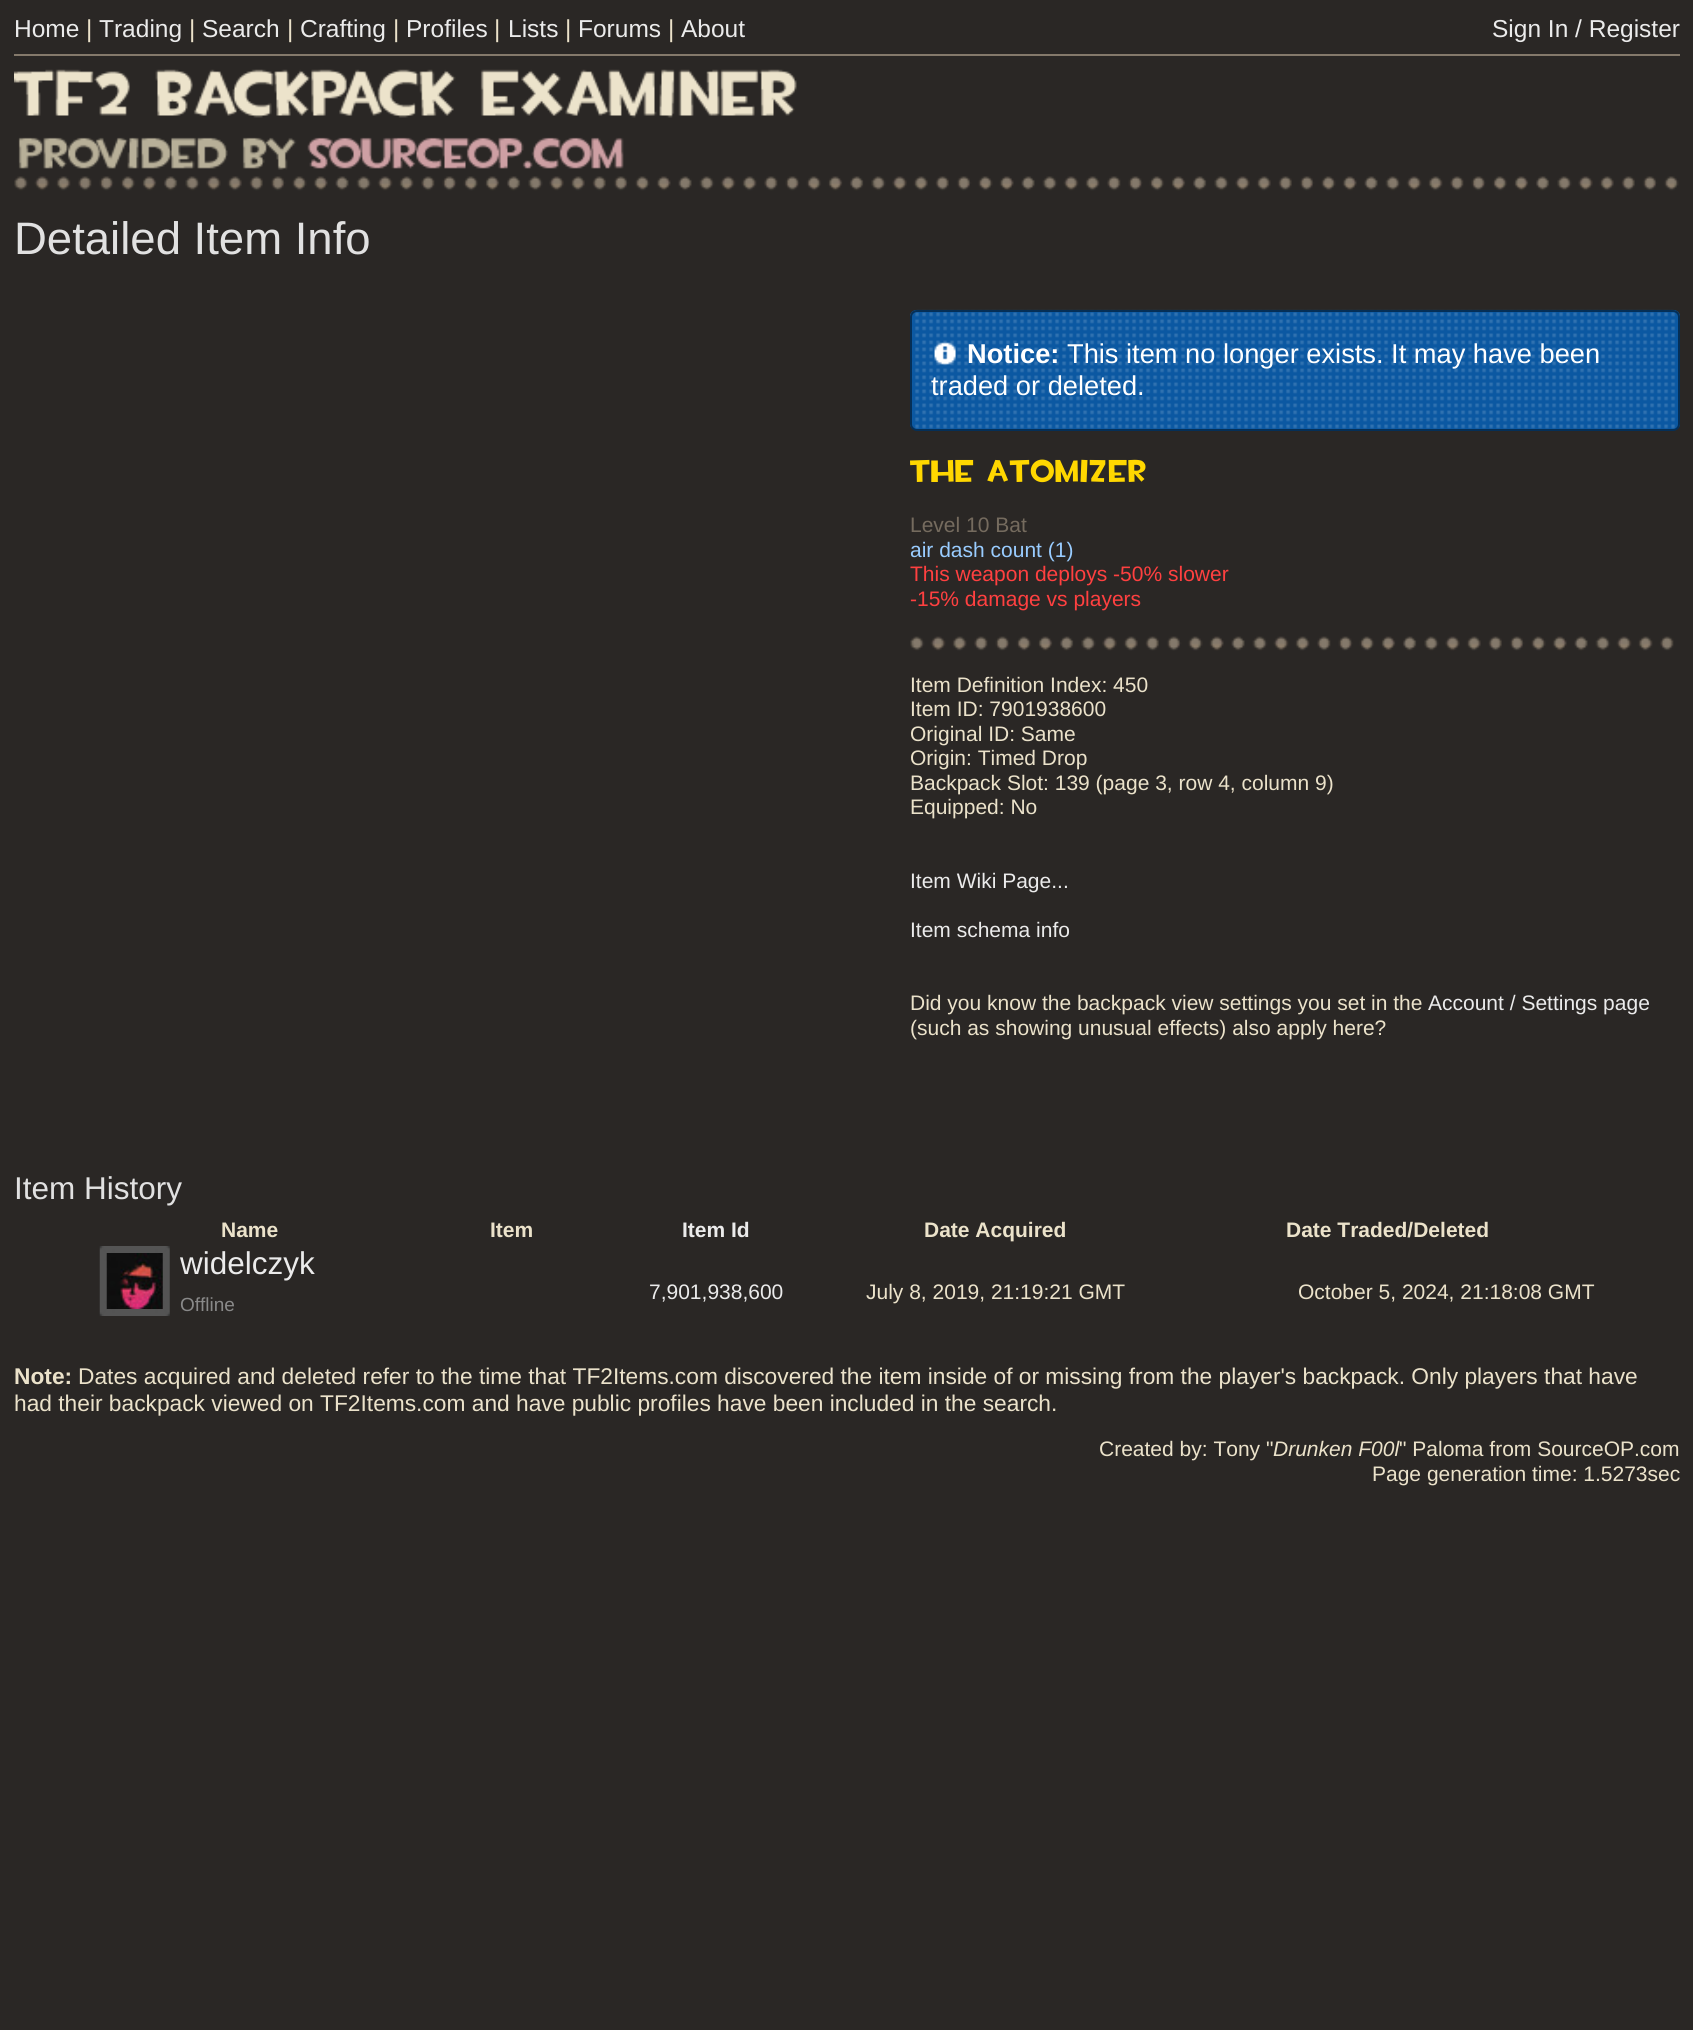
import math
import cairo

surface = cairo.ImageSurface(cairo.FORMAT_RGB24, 1693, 2030)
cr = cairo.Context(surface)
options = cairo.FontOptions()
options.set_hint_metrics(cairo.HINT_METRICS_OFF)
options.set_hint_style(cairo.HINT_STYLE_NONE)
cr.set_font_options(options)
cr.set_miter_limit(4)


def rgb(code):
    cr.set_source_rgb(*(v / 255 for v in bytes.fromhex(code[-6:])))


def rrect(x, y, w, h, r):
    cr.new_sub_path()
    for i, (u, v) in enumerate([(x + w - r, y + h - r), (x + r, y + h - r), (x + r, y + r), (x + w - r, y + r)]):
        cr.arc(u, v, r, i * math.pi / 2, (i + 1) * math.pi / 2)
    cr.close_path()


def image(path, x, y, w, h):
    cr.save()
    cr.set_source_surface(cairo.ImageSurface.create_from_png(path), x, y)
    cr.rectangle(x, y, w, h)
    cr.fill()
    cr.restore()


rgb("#2a2725")
cr.paint()
rgb("#84796b")
cr.rectangle(14, 54, 1666, 2)
cr.fill()
image("img/1.png", 14, 69, 783, 49)
image("img/2.png", 18, 137, 606, 33)
image("img/3.png", 14, 176, 1665, 15)
image("img/4.png", 910, 309, 770, 120)
rrect(911, 311, 768, 119, 6)
rgb("#052f57")
cr.stroke()
image("img/5.png", 934, 342, 22, 23)
image("img/6.png", 910, 636, 764, 15)
image("img/7.png", 99, 1246, 71, 70)
image("img/8.png", 106, 1253, 57, 56)
cr.select_font_face("Liberation Sans")
cr.set_font_size(24.5)
rgb("#ebebeb")
cr.move_to(14, 37)
cr.show_text("Home")
rgb("#ebe2ca")
cr.move_to(86, 37)
cr.show_text("|")
rgb("#ebebeb")
cr.move_to(99, 37)
cr.show_text("Trading")
rgb("#ebe2ca")
cr.move_to(189, 37)
cr.show_text("|")
rgb("#ebebeb")
cr.move_to(202, 37)
cr.show_text("Search")
rgb("#ebe2ca")
cr.move_to(287, 37)
cr.show_text("|")
rgb("#ebebeb")
cr.move_to(300, 37)
cr.show_text("Crafting")
rgb("#ebe2ca")
cr.move_to(393, 37)
cr.show_text("|")
rgb("#ebebeb")
cr.move_to(406, 37)
cr.show_text("Profiles")
rgb("#ebe2ca")
cr.move_to(494, 37)
cr.show_text("|")
rgb("#ebebeb")
cr.move_to(508, 37)
cr.show_text("Lists")
rgb("#ebe2ca")
cr.move_to(565, 37)
cr.show_text("|")
rgb("#ebebeb")
cr.move_to(578, 37)
cr.show_text("Forums")
rgb("#ebe2ca")
cr.move_to(668, 37)
cr.show_text("|")
rgb("#ebebeb")
cr.move_to(681, 37)
cr.show_text("About")
cr.move_to(1492, 37)
cr.show_text("Sign In / Register")
cr.set_font_size(45.5)
rgb("#e1e1e1")
cr.move_to(14, 254)
cr.show_text("Detailed Item Info")
cr.select_font_face("Liberation Sans", cairo.FONT_SLANT_NORMAL, cairo.FONT_WEIGHT_BOLD)
cr.set_font_size(27.25)
rgb("#ffffff")
cr.move_to(967, 363)
cr.show_text("Notice:")
cr.select_font_face("Liberation Sans")
cr.move_to(1067, 363)
cr.show_text("This item no longer exists. It may have been")
cr.move_to(931, 395)
cr.show_text("traded or deleted.")
cr.select_font_face("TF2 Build")
cr.set_font_size(31.5)
rgb("#ffd700")
cr.move_to(910, 482)
cr.show_text("The Atomizer")
cr.select_font_face("Liberation Sans")
cr.set_font_size(21)
rgb("#756b5e")
cr.move_to(910, 532)
cr.show_text("Level 10 Bat")
rgb("#99ccff")
cr.move_to(910, 557)
cr.show_text("air dash count (1)")
rgb("#ff4040")
cr.move_to(910, 581)
cr.show_text("This weapon deploys -50% slower")
cr.move_to(910, 606)
cr.show_text("-15% damage vs players")
rgb("#ebe2ca")
for x, y, s in [
    (910, 692, "Item Definition Index: 450"),
    (910, 716, "Item ID: 7901938600"),
    (910, 741, "Original ID: Same"),
    (910, 765, "Origin: Timed Drop"),
    (910, 790, "Backpack Slot: 139 (page 3, row 4, column 9)"),
    (910, 814, "Equipped: No"),
]:
    cr.move_to(x, y)
    cr.show_text(s)
rgb("#ebebeb")
cr.move_to(910, 888)
cr.show_text("Item Wiki Page...")
cr.move_to(910, 937)
cr.show_text("Item schema info")
rgb("#ebe2ca")
cr.move_to(910, 1010)
cr.show_text("Did you know the backpack view settings you set in the")
rgb("#ebebeb")
cr.move_to(1428, 1010)
cr.show_text("Account / Settings page")
rgb("#ebe2ca")
cr.move_to(910, 1035)
cr.show_text("(such as showing unusual effects) also apply here?")
cr.set_font_size(31.5)
rgb("#e1e1e1")
cr.move_to(14, 1199)
cr.show_text("Item History")
cr.select_font_face("Liberation Sans", cairo.FONT_SLANT_NORMAL, cairo.FONT_WEIGHT_BOLD)
cr.set_font_size(21)
rgb("#ebe2ca")
cr.move_to(221, 1237)
cr.show_text("Name")
cr.move_to(490, 1237)
cr.show_text("Item")
rgb("#ebebeb")
cr.move_to(682, 1237)
cr.show_text("Item Id")
rgb("#ebe2ca")
cr.move_to(924, 1237)
cr.show_text("Date Acquired")
cr.move_to(1286, 1237)
cr.show_text("Date Traded/Deleted")
cr.select_font_face("Liberation Sans")
cr.set_font_size(31.5)
rgb("#ebebeb")
cr.move_to(180, 1274)
cr.show_text("widelczyk")
cr.set_font_size(19)
rgb("#898989")
cr.move_to(180, 1311)
cr.show_text("Offline")
cr.set_font_size(21)
rgb("#ebebeb")
cr.move_to(649, 1299)
cr.show_text("7,901,938,600")
rgb("#ebe2ca")
cr.move_to(866, 1299)
cr.show_text("July 8, 2019, 21:19:21 GMT")
cr.move_to(1298, 1299)
cr.show_text("October 5, 2024, 21:18:08 GMT")
cr.select_font_face("Liberation Sans", cairo.FONT_SLANT_NORMAL, cairo.FONT_WEIGHT_BOLD)
cr.set_font_size(22.75)
cr.move_to(14, 1384)
cr.show_text("Note:")
cr.select_font_face("Liberation Sans")
cr.move_to(78, 1384)
cr.show_text("Dates acquired and deleted refer to the time that TF2Items.com discovered the item inside of or missing from the player's backpack. Only players that have")
cr.move_to(14, 1411)
cr.show_text("had their backpack viewed on TF2Items.com and have public profiles have been included in the search.")
cr.set_font_size(21)
cr.move_to(1099, 1456)
cr.show_text("Created by: Tony \"")
cr.select_font_face("Liberation Sans", cairo.FONT_SLANT_ITALIC)
cr.move_to(1273, 1456)
cr.show_text("Drunken F00l")
cr.select_font_face("Liberation Sans")
cr.move_to(1399, 1456)
cr.show_text("\" Paloma from SourceOP.com")
cr.move_to(1372, 1481)
cr.show_text("Page generation time: 1.5273sec")
surface.write_to_png("page.png")
